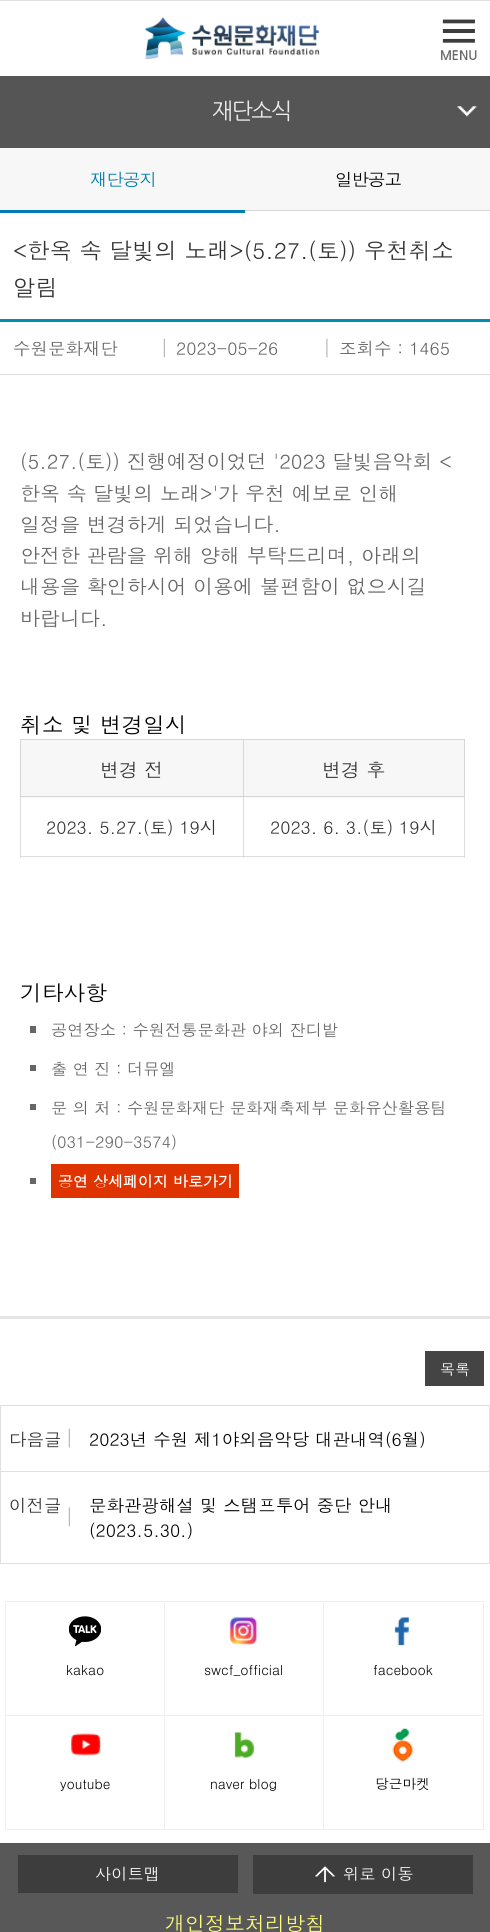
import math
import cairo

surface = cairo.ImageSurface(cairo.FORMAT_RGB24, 490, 1932)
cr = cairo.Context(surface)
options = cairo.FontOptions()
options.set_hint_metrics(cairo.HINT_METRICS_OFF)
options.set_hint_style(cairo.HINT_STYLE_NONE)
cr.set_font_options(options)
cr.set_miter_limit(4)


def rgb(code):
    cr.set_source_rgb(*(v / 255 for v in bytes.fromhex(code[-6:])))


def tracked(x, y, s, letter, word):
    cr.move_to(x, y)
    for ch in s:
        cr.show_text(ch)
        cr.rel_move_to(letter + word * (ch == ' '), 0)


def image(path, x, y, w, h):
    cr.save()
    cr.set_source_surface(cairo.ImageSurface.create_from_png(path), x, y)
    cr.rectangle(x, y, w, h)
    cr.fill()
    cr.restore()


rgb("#ffffff")
cr.paint()
rgb("#dfdfdf")
cr.rectangle(0, 0, 490, 1)
cr.fill()
image("img/1.png", 145, 17, 175, 43)
image("img/2.png", 441, 19, 36, 41)
rgb("#555555")
cr.rectangle(0, 76, 490, 72)
cr.fill()
image("img/3.png", 457, 106, 20, 11)
for x, y, w, h, color in [
    (0, 148, 490, 62, "#f7f7f7"),
    (245, 210, 245, 1, "#d7d7d7"),
    (0, 210, 245, 3, "#007dac"),
    (0, 319, 490, 3, "#008db6"),
    (0, 1316, 490, 3, "#e5e5e5"),
]:
    rgb(color)
    cr.rectangle(x, y, w, h)
    cr.fill()
image("img/4.png", 163, 338, 2, 20)
image("img/5.png", 326, 338, 2, 20)
for x, y, w, h, color in [
    (0, 374, 490, 1, "#dddddd"),
    (20, 739, 445, 1, "#d7d7d7"),
    (21, 740, 222, 58, "#f7f7f7"),
    (244, 740, 220, 58, "#f7f7f7"),
    (464, 796, 1, 62, "#dddddd"),
    (464, 739, 1, 59, "#d7d7d7"),
    (243, 856, 222, 1, "#dddddd"),
    (243, 796, 1, 62, "#dddddd"),
    (243, 796, 222, 1, "#d7d7d7"),
    (243, 739, 1, 59, "#d7d7d7"),
    (20, 856, 224, 1, "#dddddd"),
    (20, 796, 1, 62, "#dddddd"),
    (20, 796, 224, 1, "#d7d7d7"),
    (20, 739, 1, 59, "#d7d7d7"),
    (30, 1026, 6, 7, "#666666"),
    (30, 1065, 6, 6, "#666666"),
    (30, 1104, 6, 6, "#666666"),
    (30, 1178, 6, 6, "#666666"),
    (51, 1164, 188, 34, "#df3400"),
    (425, 1351, 59, 35, "#444444"),
    (0, 1405, 490, 1, "#e0e0e0"),
    (489, 1405, 1, 159, "#e0e0e0"),
    (0, 1563, 490, 1, "#e0e0e0"),
    (0, 1405, 1, 159, "#e0e0e0"),
]:
    rgb(color)
    cr.rectangle(x, y, w, h)
    cr.fill()
image("img/4.png", 68, 1428, 2, 20)
cr.rectangle(0, 1471, 490, 1)
cr.fill()
image("img/6.png", 68, 1507, 2, 20)
for x, y, w, h, color in [
    (5, 1601, 480, 1, "#efefef"),
    (5, 1829, 480, 1, "#efefef"),
    (5, 1603, 1, 112, "#efefef"),
]:
    rgb(color)
    cr.rectangle(x, y, w, h)
    cr.fill()
image("img/7.png", 69, 1616, 32, 31)
cr.rectangle(164, 1603, 1, 112)
cr.fill()
image("img/8.png", 229, 1616, 29, 30)
cr.rectangle(483, 1603, 1, 112)
cr.fill()
cr.rectangle(323, 1603, 1, 112)
cr.fill()
image("img/9.png", 394, 1615, 15, 31)
cr.rectangle(5, 1715, 479, 1)
cr.fill()
cr.rectangle(5, 1715, 1, 114)
cr.fill()
image("img/10.png", 70, 1733, 32, 23)
cr.rectangle(164, 1715, 1, 114)
cr.fill()
image("img/11.png", 234, 1732, 20, 28)
cr.rectangle(483, 1715, 1, 114)
cr.fill()
cr.rectangle(323, 1715, 1, 114)
cr.fill()
image("img/12.png", 386, 1728, 30, 34)
for x, y, w, h, color in [
    (0, 1843, 490, 89, "#585858"),
    (18, 1855, 220, 38, "#3d3d3d"),
    (253, 1855, 220, 39, "#3d3d3d"),
]:
    rgb(color)
    cr.rectangle(x, y, w, h)
    cr.fill()
image("img/13.png", 315, 1866, 20, 17)
cr.select_font_face("NanumGothic")
cr.set_font_size(22.5)
rgb("#eaeaea")
tracked(212, 119, "재단소식", -1.5, 0)
cr.select_font_face("Dotum")
cr.set_font_size(17.5)
rgb("#007dac")
tracked(90, 186, "재단공지", -1, 0)
rgb("#000000")
tracked(335, 186, "일반공고", -1, 0)
cr.set_font_size(22.5)
rgb("#333333")
cr.move_to(13, 259)
cr.show_text("<한옥 속 달빛의 노래>(5.27.(토)) 우천취소")
cr.move_to(13, 296)
cr.show_text("알림")
cr.set_font_size(17.5)
rgb("#666666")
for x, y, s in [
    (13, 355, "수원문화재단"),
    (176, 355, "2023-05-26"),
    (339, 355, "조회수 : 1465"),
]:
    cr.move_to(x, y)
    cr.show_text(s)
cr.set_font_size(20)
for x, y, s in [
    (20, 469, "(5.27.(토)) 진행예정이었던 '2023 달빛음악회 <"),
    (20, 501, "한옥 속 달빛의 노래>'가 우천 예보로 인해"),
    (20, 532, "일정을 변경하게 되었습니다."),
    (20, 563, "안전한 관람을 위해 양해 부탁드리며, 아래의"),
    (20, 594, "내용을 확인하시어 이용에 불편함이 없으시길"),
    (20, 626, "바랍니다."),
]:
    cr.move_to(x, y)
    cr.show_text(s)
cr.set_font_size(21.75)
rgb("#000000")
cr.move_to(20, 733)
cr.show_text("취소 및 변경일시")
cr.set_font_size(19)
rgb("#333333")
cr.move_to(100, 777)
cr.show_text("변경 전")
cr.move_to(322, 777)
cr.show_text("변경 후")
cr.set_font_size(17.5)
cr.move_to(46, 834)
cr.show_text("2023. 5.27.(토) 19시")
cr.move_to(270, 834)
cr.show_text("2023. 6. 3.(토) 19시")
cr.set_font_size(21.75)
rgb("#000000")
cr.move_to(20, 1001)
cr.show_text("기타사항")
cr.set_font_size(16.25)
rgb("#666666")
for x, y, s in [
    (51, 1036, "공연장소 : 수원전통문화관 야외 잔디밭"),
    (51, 1075, "출 연 진 : 더뮤엘"),
    (51, 1114, "문 의 처 : 수원문화재단 문화재축제부 문화유산활용팀"),
    (51, 1148, "(031-290-3574)"),
]:
    cr.move_to(x, y)
    cr.show_text(s)
cr.select_font_face("Dotum", cairo.FONT_SLANT_NORMAL, cairo.FONT_WEIGHT_BOLD)
cr.set_font_size(15)
rgb("#ffffff")
cr.move_to(58, 1187)
cr.show_text("공연 상세페이지 바로가기")
cr.select_font_face("Dotum")
cr.move_to(440, 1375)
cr.show_text("목록")
cr.set_font_size(17.5)
rgb("#333333")
cr.move_to(9, 1446)
cr.show_text("다음글")
rgb("#000000")
cr.move_to(89, 1446)
cr.show_text("2023년 수원 제1야외음악당 대관내역(6월)")
rgb("#333333")
cr.move_to(9, 1512)
cr.show_text("이전글")
rgb("#000000")
cr.move_to(89, 1512)
cr.show_text("문화관광해설 및 스탬프투어 중단 안내")
cr.move_to(89, 1537)
cr.show_text("(2023.5.30.)")
cr.set_font_size(13.75)
for x, y, s in [
    (66, 1675, "kakao"),
    (204, 1675, "swcf_official"),
    (373, 1675, "facebook"),
    (60, 1789, "youtube"),
    (210, 1789, "naver blog"),
    (375, 1789, "당근마켓"),
]:
    cr.move_to(x, y)
    cr.show_text(s)
cr.set_font_size(16.25)
rgb("#ffffff")
cr.move_to(95, 1880)
cr.show_text("사이트맵")
cr.move_to(343, 1880)
cr.show_text("위로 이동")
cr.set_font_size(20)
rgb("#fffe7c")
cr.move_to(165, 1931)
cr.show_text("개인정보처리방침")
surface.write_to_png("page.png")
